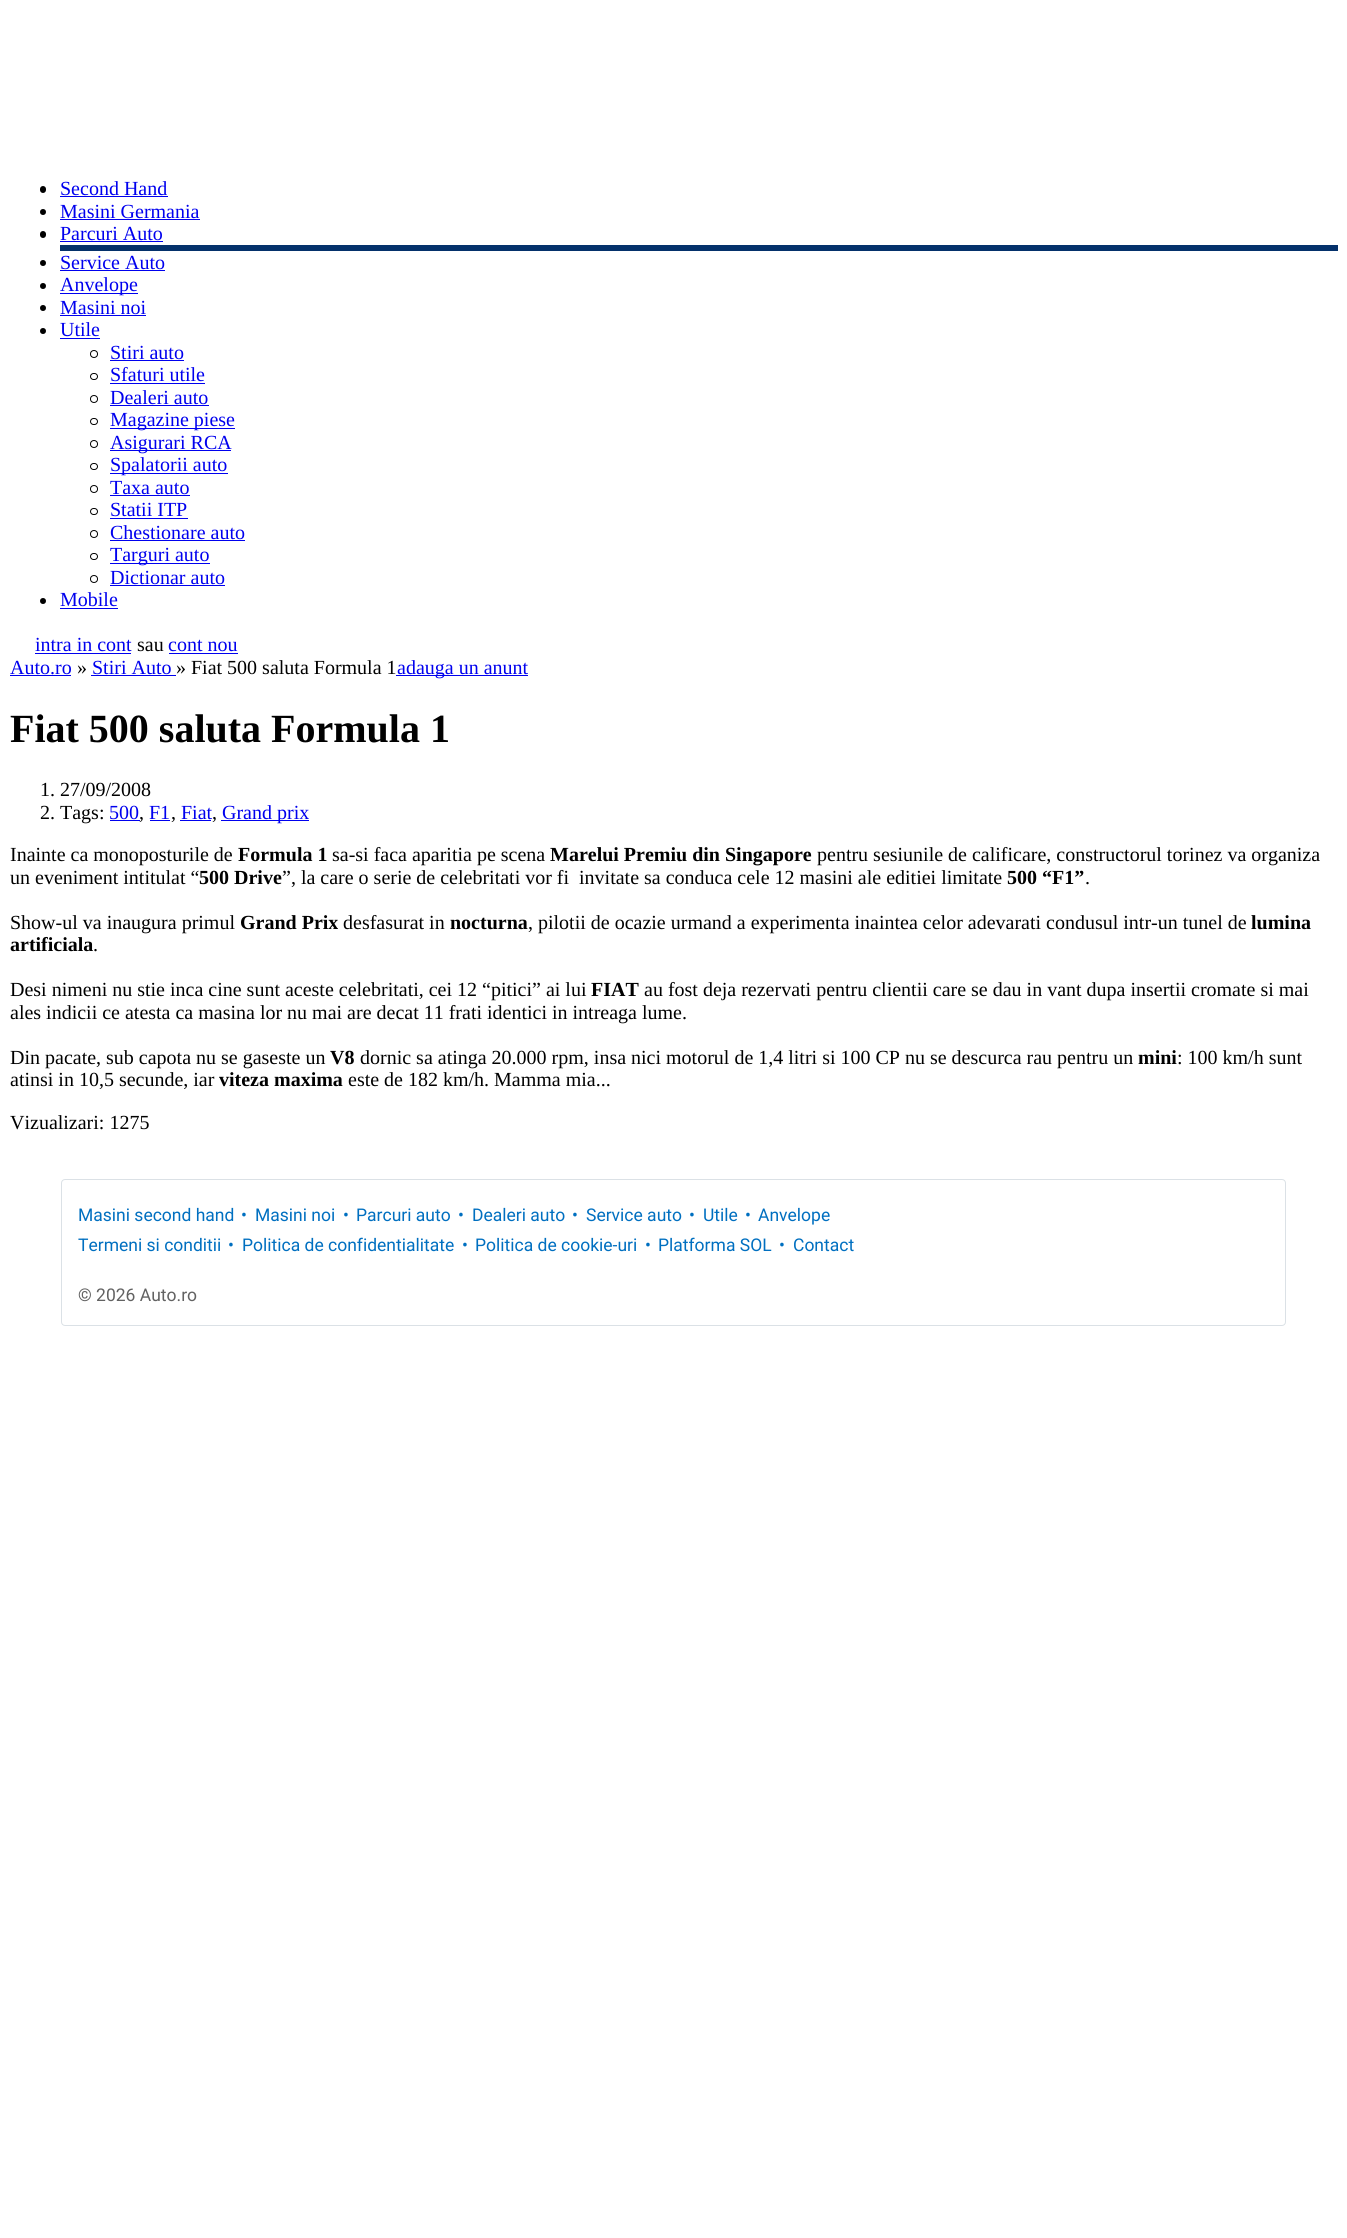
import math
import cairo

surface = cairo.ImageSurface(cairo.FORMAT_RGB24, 1347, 2238)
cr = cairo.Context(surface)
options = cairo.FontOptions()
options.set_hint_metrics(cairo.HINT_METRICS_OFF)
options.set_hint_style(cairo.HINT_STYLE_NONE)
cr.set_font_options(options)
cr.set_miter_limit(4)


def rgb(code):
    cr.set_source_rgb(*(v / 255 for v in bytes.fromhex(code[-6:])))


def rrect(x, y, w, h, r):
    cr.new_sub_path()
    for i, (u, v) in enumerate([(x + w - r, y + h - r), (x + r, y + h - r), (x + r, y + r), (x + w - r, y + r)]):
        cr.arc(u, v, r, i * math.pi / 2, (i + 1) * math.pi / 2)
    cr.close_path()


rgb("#ffffff")
cr.paint()
rgb("#000000")
rrect(40, 186, 6, 7, 3)
cr.fill()
rgb("#0000ee")
cr.rectangle(60, 196, 108, 1)
cr.fill()
rgb("#000000")
cr.arc(43, 212, 3, 0, 2 * math.pi)
cr.fill()
rgb("#0000ee")
cr.rectangle(60, 219, 140, 1)
cr.fill()
rgb("#04316b")
cr.rectangle(60, 245, 1278, 6)
cr.fill()
rgb("#000000")
rrect(40, 231, 6, 7, 3)
cr.fill()
rgb("#0000ee")
cr.rectangle(60, 241, 103, 1)
cr.fill()
rgb("#000000")
cr.arc(43, 263, 3, 0, 2 * math.pi)
cr.fill()
rgb("#0000ee")
cr.rectangle(60, 270, 105, 1)
cr.fill()
rgb("#000000")
cr.arc(43, 286, 3, 0, 2 * math.pi)
cr.fill()
rgb("#0000ee")
cr.rectangle(60, 293, 78, 1)
cr.fill()
rgb("#000000")
cr.arc(43, 308, 3, 0, 2 * math.pi)
cr.fill()
rgb("#0000ee")
cr.rectangle(60, 315, 86, 1)
cr.fill()
rgb("#000000")
cr.arc(43, 331, 3, 0, 2 * math.pi)
cr.fill()
rgb("#0000ee")
cr.rectangle(60, 338, 40, 1)
cr.fill()
cr.arc(94, 354, 3.5, 0, 2 * math.pi)
rgb("#000000")
cr.set_line_width(1)
cr.stroke()
rgb("#0000ee")
cr.rectangle(110, 360, 74, 1)
cr.fill()
rrect(90.5, 373.5, 7, 6, 3)
rgb("#000000")
cr.stroke()
rgb("#0000ee")
cr.rectangle(110, 383, 95, 1)
cr.fill()
cr.arc(94, 399, 3.5, 0, 2 * math.pi)
rgb("#000000")
cr.stroke()
rgb("#0000ee")
cr.rectangle(110, 405, 99, 1)
cr.fill()
rrect(90.5, 418.5, 7, 6, 3)
rgb("#000000")
cr.stroke()
rgb("#0000ee")
cr.rectangle(110, 428, 125, 1)
cr.fill()
cr.arc(94, 444, 3.5, 0, 2 * math.pi)
rgb("#000000")
cr.stroke()
rgb("#0000ee")
cr.rectangle(110, 450, 121, 1)
cr.fill()
rrect(90.5, 463.5, 7, 6, 3)
rgb("#000000")
cr.stroke()
rgb("#0000ee")
cr.rectangle(110, 473, 118, 1)
cr.fill()
cr.arc(94, 489, 3.5, 0, 2 * math.pi)
rgb("#000000")
cr.stroke()
rgb("#0000ee")
cr.rectangle(110, 495, 80, 1)
cr.fill()
rrect(90.5, 508.5, 7, 6, 3)
rgb("#000000")
cr.stroke()
rgb("#0000ee")
cr.rectangle(110, 518, 78, 1)
cr.fill()
cr.arc(94, 534, 3.5, 0, 2 * math.pi)
rgb("#000000")
cr.stroke()
rgb("#0000ee")
cr.rectangle(110, 540, 135, 1)
cr.fill()
rrect(90.5, 553.5, 7, 6, 3)
rgb("#000000")
cr.stroke()
rgb("#0000ee")
cr.rectangle(110, 563, 100, 1)
cr.fill()
cr.arc(94, 579, 3.5, 0, 2 * math.pi)
rgb("#000000")
cr.stroke()
rgb("#0000ee")
cr.rectangle(110, 585, 115, 1)
cr.fill()
rgb("#000000")
cr.arc(43, 601, 3, 0, 2 * math.pi)
cr.fill()
for x, y, w, h, color in [
    (60, 608, 58, 1, "#0000ee"),
    (35, 653, 96, 1, "#0000ee"),
    (169, 653, 69, 1, "#0000ee"),
    (10, 675, 61, 1, "#0000ee"),
    (91, 675, 85, 1, "#0000ee"),
    (396, 675, 132, 1, "#0000ee"),
    (110, 820, 30, 1, "#0000ee"),
    (150, 820, 20, 1, "#0000ee"),
    (180, 820, 31, 1, "#0000ee"),
    (221, 820, 88, 1, "#0000ee"),
]:
    rgb(color)
    cr.rectangle(x, y, w, h)
    cr.fill()
rrect(61.5, 1179.5, 1224, 146, 3.5)
rgb("#dbe1e6")
cr.stroke()
cr.select_font_face("Liberation Serif")
cr.set_font_size(20)
rgb("#0000ee")
for x, y, s in [
    (60, 195, "Second Hand"),
    (60, 218, "Masini Germania"),
    (60, 240, "Parcuri Auto"),
    (60, 269, "Service Auto"),
    (60, 291, "Anvelope"),
    (60, 314, "Masini noi"),
    (60, 336, "Utile"),
    (110, 359, "Stiri auto"),
    (110, 381, "Sfaturi utile"),
    (110, 404, "Dealeri auto"),
    (110, 426, "Magazine piese"),
    (110, 449, "Asigurari RCA"),
    (110, 471, "Spalatorii auto"),
    (110, 494, "Taxa auto"),
    (110, 516, "Statii ITP"),
    (110, 539, "Chestionare auto"),
    (110, 561, "Targuri auto"),
    (110, 584, "Dictionar auto"),
    (60, 606, "Mobile"),
    (35, 651, "intra in cont"),
]:
    cr.move_to(x, y)
    cr.show_text(s)
rgb("#000000")
cr.move_to(137, 651)
cr.show_text("sau")
rgb("#0000ee")
cr.move_to(168, 651)
cr.show_text("cont nou")
cr.move_to(10, 674)
cr.show_text("Auto.ro")
rgb("#000000")
cr.move_to(77, 674)
cr.show_text("»")
rgb("#0000ee")
cr.move_to(92, 674)
cr.show_text("Stiri Auto")
rgb("#000000")
cr.move_to(176, 674)
cr.show_text("» Fiat 500 saluta Formula 1")
rgb("#0000ee")
cr.move_to(397, 674)
cr.show_text("adauga un anunt")
cr.select_font_face("Liberation Serif", cairo.FONT_SLANT_NORMAL, cairo.FONT_WEIGHT_BOLD)
cr.set_font_size(40)
rgb("#000000")
cr.move_to(10, 742)
cr.show_text("Fiat 500 saluta Formula 1")
cr.select_font_face("Liberation Serif")
cr.set_font_size(20)
cr.move_to(40, 796)
cr.show_text("1. 27/09/2008")
cr.move_to(40, 819)
cr.show_text("2. Tags:")
rgb("#0000ee")
cr.move_to(109, 819)
cr.show_text("500")
rgb("#000000")
cr.move_to(139, 819)
cr.show_text(",")
rgb("#0000ee")
cr.move_to(149, 819)
cr.show_text("F1")
rgb("#000000")
cr.move_to(171, 819)
cr.show_text(",")
rgb("#0000ee")
cr.move_to(181, 819)
cr.show_text("Fiat")
rgb("#000000")
cr.move_to(212, 819)
cr.show_text(",")
rgb("#0000ee")
cr.move_to(222, 819)
cr.show_text("Grand prix")
rgb("#000000")
cr.move_to(10, 861)
cr.show_text("Inainte ca monoposturile de")
cr.select_font_face("Liberation Serif", cairo.FONT_SLANT_NORMAL, cairo.FONT_WEIGHT_BOLD)
cr.move_to(238, 861)
cr.show_text("Formula 1")
cr.select_font_face("Liberation Serif")
cr.move_to(332, 861)
cr.show_text("sa-si faca aparitia pe scena")
cr.select_font_face("Liberation Serif", cairo.FONT_SLANT_NORMAL, cairo.FONT_WEIGHT_BOLD)
cr.move_to(550, 861)
cr.show_text("Marelui Premiu din Singapore")
cr.select_font_face("Liberation Serif")
cr.move_to(817, 861)
cr.show_text("pentru sesiunile de calificare, constructorul torinez va organiza")
cr.move_to(10, 884)
cr.show_text("un eveniment intitulat “")
cr.select_font_face("Liberation Serif", cairo.FONT_SLANT_NORMAL, cairo.FONT_WEIGHT_BOLD)
cr.move_to(199, 884)
cr.show_text("500 Drive")
cr.select_font_face("Liberation Serif")
cr.move_to(282, 884)
cr.show_text("”, la care o serie de celebritati vor fi  invitate sa conduca cele 12 masini ale editiei limitate")
cr.select_font_face("Liberation Serif", cairo.FONT_SLANT_NORMAL, cairo.FONT_WEIGHT_BOLD)
cr.move_to(1007, 884)
cr.show_text("500 “F1”")
cr.select_font_face("Liberation Serif")
cr.move_to(1085, 884)
cr.show_text(".")
cr.move_to(10, 929)
cr.show_text("Show-ul va inaugura primul")
cr.select_font_face("Liberation Serif", cairo.FONT_SLANT_NORMAL, cairo.FONT_WEIGHT_BOLD)
cr.move_to(240, 929)
cr.show_text("Grand Prix")
cr.select_font_face("Liberation Serif")
cr.move_to(343, 929)
cr.show_text("desfasurat in")
cr.select_font_face("Liberation Serif", cairo.FONT_SLANT_NORMAL, cairo.FONT_WEIGHT_BOLD)
cr.move_to(450, 929)
cr.show_text("nocturna")
cr.select_font_face("Liberation Serif")
cr.move_to(528, 929)
cr.show_text(", pilotii de ocazie urmand a experimenta inaintea celor adevarati condusul intr-un tunel de")
cr.select_font_face("Liberation Serif", cairo.FONT_SLANT_NORMAL, cairo.FONT_WEIGHT_BOLD)
cr.move_to(1251, 929)
cr.show_text("lumina")
cr.move_to(10, 951)
cr.show_text("artificiala")
cr.select_font_face("Liberation Serif")
cr.move_to(93, 951)
cr.show_text(".")
cr.move_to(10, 996)
cr.show_text("Desi nimeni nu stie inca cine sunt aceste celebritati, cei 12 “pitici” ai lui")
cr.select_font_face("Liberation Serif", cairo.FONT_SLANT_NORMAL, cairo.FONT_WEIGHT_BOLD)
cr.move_to(591, 996)
cr.show_text("FIAT")
cr.select_font_face("Liberation Serif")
for x, y, s in [
    (644, 996, "au fost deja rezervati pentru clientii care se dau in vant dupa insertii cromate si mai"),
    (10, 1019, "ales indicii ce atesta ca masina lor nu mai are decat 11 frati identici in intreaga lume."),
    (10, 1064, "Din pacate, sub capota nu se gaseste un"),
]:
    cr.move_to(x, y)
    cr.show_text(s)
cr.select_font_face("Liberation Serif", cairo.FONT_SLANT_NORMAL, cairo.FONT_WEIGHT_BOLD)
cr.move_to(330, 1064)
cr.show_text("V8")
cr.select_font_face("Liberation Serif")
cr.move_to(360, 1064)
cr.show_text("dornic sa atinga 20.000 rpm, insa nici motorul de 1,4 litri si 100 CP nu se descurca rau pentru un")
cr.select_font_face("Liberation Serif", cairo.FONT_SLANT_NORMAL, cairo.FONT_WEIGHT_BOLD)
cr.move_to(1138, 1064)
cr.show_text("mini")
cr.select_font_face("Liberation Serif")
cr.move_to(1177, 1064)
cr.show_text(": 100 km/h sunt")
cr.move_to(10, 1086)
cr.show_text("atinsi in 10,5 secunde, iar")
cr.select_font_face("Liberation Serif", cairo.FONT_SLANT_NORMAL, cairo.FONT_WEIGHT_BOLD)
cr.move_to(219, 1086)
cr.show_text("viteza maxima")
cr.select_font_face("Liberation Serif")
cr.move_to(348, 1086)
cr.show_text("este de 182 km/h. Mamma mia...")
cr.move_to(10, 1129)
cr.show_text("Vizualizari: 1275")
cr.select_font_face("Roboto")
cr.set_font_size(17.5)
rgb("#006fc0")
for x, y, s in [
    (78, 1221, "Masini second hand"),
    (241, 1221, "•"),
    (255, 1221, "Masini noi"),
    (343, 1221, "•"),
    (356, 1221, "Parcuri auto"),
    (458, 1221, "•"),
    (472, 1221, "Dealeri auto"),
    (572, 1221, "•"),
    (586, 1221, "Service auto"),
    (689, 1221, "•"),
    (703, 1221, "Utile"),
    (745, 1221, "•"),
    (758, 1221, "Anvelope"),
    (78, 1251, "Termeni si conditii"),
    (228, 1251, "•"),
    (242, 1251, "Politica de confidentialitate"),
    (462, 1251, "•"),
    (475, 1251, "Politica de cookie-uri"),
    (645, 1251, "•"),
    (658, 1251, "Platforma SOL"),
    (779, 1251, "•"),
    (793, 1251, "Contact"),
]:
    cr.move_to(x, y)
    cr.show_text(s)
rgb("#626262")
cr.move_to(78, 1301)
cr.show_text("© 2026 Auto.ro")
surface.write_to_png("page.png")
